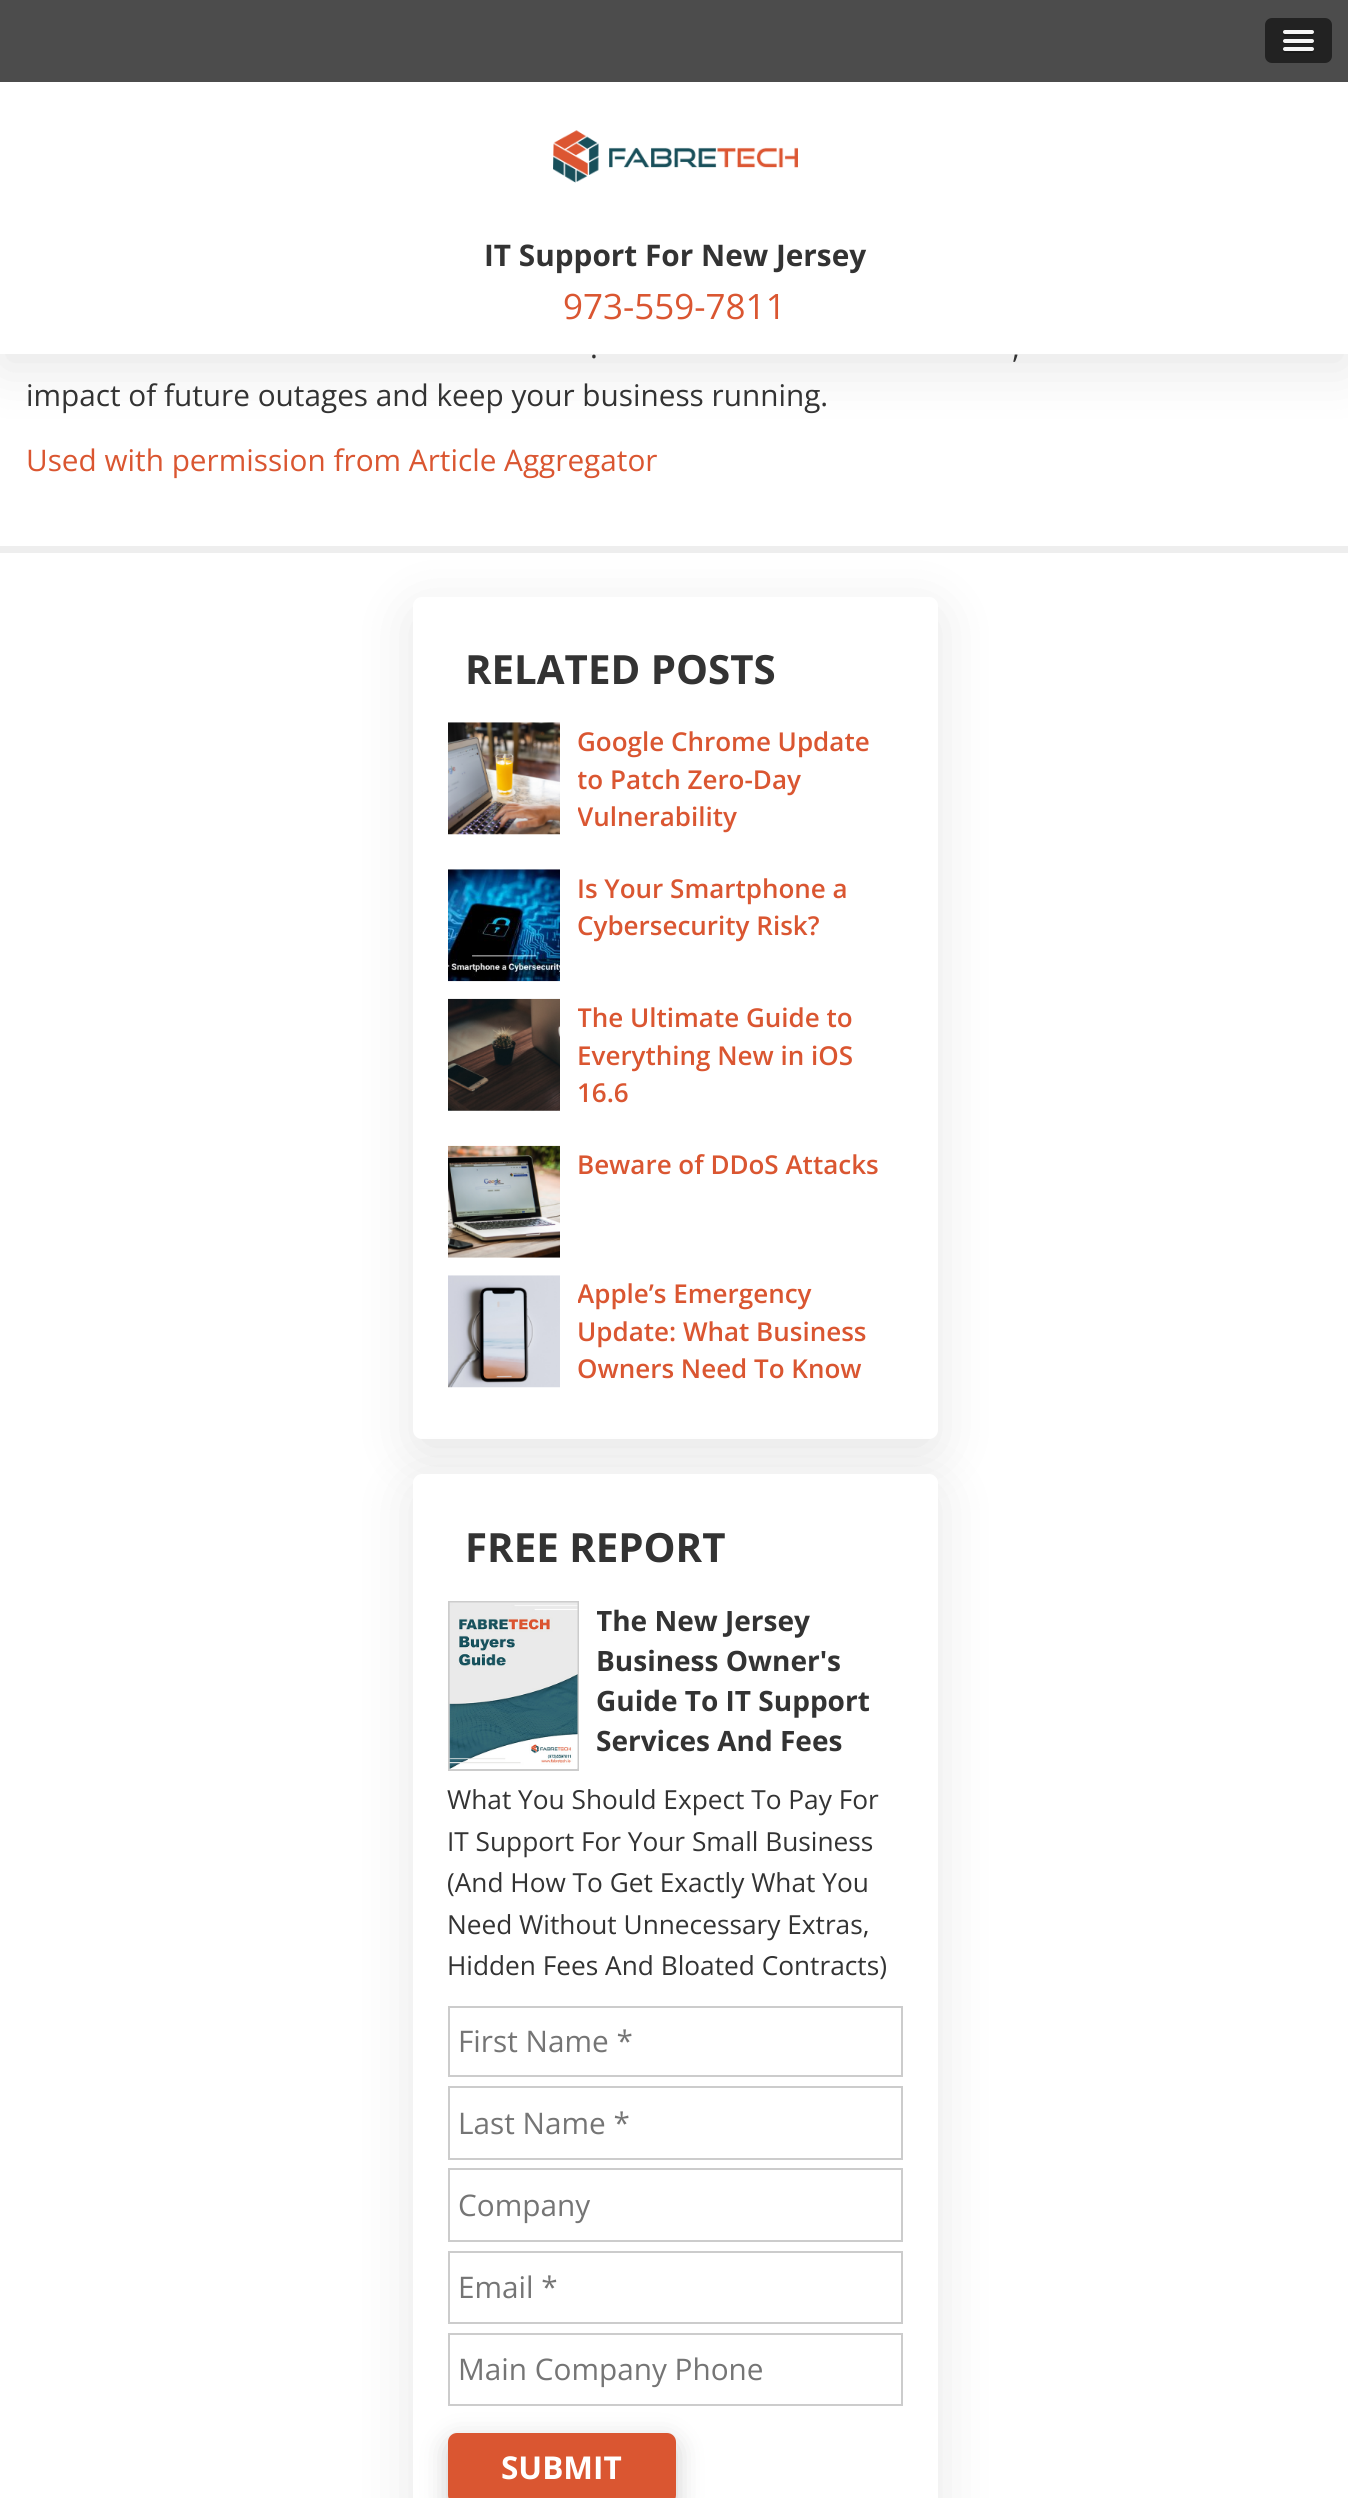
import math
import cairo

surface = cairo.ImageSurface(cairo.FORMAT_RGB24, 1348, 2498)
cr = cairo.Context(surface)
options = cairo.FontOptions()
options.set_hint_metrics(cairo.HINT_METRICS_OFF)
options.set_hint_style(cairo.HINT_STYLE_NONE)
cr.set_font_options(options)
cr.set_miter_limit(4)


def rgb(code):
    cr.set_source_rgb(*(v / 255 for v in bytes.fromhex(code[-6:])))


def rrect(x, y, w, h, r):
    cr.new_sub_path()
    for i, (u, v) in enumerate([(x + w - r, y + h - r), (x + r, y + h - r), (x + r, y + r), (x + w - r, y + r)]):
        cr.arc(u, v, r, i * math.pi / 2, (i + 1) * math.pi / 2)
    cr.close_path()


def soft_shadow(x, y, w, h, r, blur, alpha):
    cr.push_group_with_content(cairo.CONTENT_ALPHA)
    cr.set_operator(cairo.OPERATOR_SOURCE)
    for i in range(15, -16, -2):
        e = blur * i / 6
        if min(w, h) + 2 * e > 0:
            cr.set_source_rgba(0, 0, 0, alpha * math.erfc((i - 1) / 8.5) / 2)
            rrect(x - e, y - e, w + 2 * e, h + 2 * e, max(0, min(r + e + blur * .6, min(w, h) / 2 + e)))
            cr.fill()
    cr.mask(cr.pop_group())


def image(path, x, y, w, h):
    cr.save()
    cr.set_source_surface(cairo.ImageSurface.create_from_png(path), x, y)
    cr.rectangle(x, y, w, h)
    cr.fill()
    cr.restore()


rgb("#ffffff")
cr.paint()
rgb("#000000")
soft_shadow(0, 14, 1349, 354, 0, 28, 0.1)
rgb("#ffffff")
cr.rectangle(0, 82, 1348, 272)
cr.fill()
rgb("#4c4c4c")
cr.rectangle(0, 0, 1348, 82)
cr.fill()
rgb("#222222")
rrect(1265, 18, 67, 45, 7)
cr.fill()
rgb("#1a1a1a")
cr.new_path()
cr.move_to(1283.5, 33)
cr.line_to(1283, 34.5)
cr.curve_to(1283.5, 37, 1288.5, 36, 1289.5, 36)
cr.line_to(1307.5, 36)
cr.curve_to(1308.5, 36, 1313.5, 37, 1314, 34.5)
cr.line_to(1313.5, 33)
cr.curve_to(1312.5, 33.5, 1284.5, 33.5, 1283.5, 33)
cr.close_path()
cr.fill()
rgb("#f5f5f5")
rrect(1283, 30, 31, 4, 2)
cr.fill()
rgb("#1a1a1a")
cr.new_path()
cr.move_to(1283, 41.5)
cr.curve_to(1282, 45, 1288.5, 44, 1289.5, 44)
cr.line_to(1307.5, 44)
cr.curve_to(1308.5, 44, 1315, 45, 1314, 41.5)
cr.line_to(1312.5, 42)
cr.line_to(1284.5, 42)
cr.close_path()
cr.fill()
rgb("#f5f5f5")
rrect(1283, 39, 31, 4, 2)
cr.fill()
rgb("#1a1a1a")
cr.new_path()
cr.move_to(1283, 50)
cr.curve_to(1281.5, 54, 1288.5, 53, 1289.5, 53)
cr.line_to(1307.5, 53)
cr.curve_to(1308.5, 53, 1315.5, 54, 1314, 50)
cr.line_to(1312.5, 50.5)
cr.line_to(1284.5, 50.5)
cr.close_path()
cr.fill()
rgb("#f5f5f5")
rrect(1283, 47, 31, 4, 2)
cr.fill()
image("img/1.png", 553, 130, 245, 53)
rgb("#eeeeee")
cr.rectangle(0, 546, 1348, 7)
cr.fill()
rgb("#000000")
soft_shadow(413, 611, 525, 842, 9, 28, 0.1)
rgb("#ffffff")
rrect(413, 597, 525, 842, 9)
cr.fill()
image("img/2.png", 448, 722, 112, 113)
image("img/3.png", 448, 869, 112, 113)
image("img/4.png", 448, 998, 112, 113)
image("img/5.png", 448, 1145, 112, 113)
image("img/6.png", 448, 1275, 112, 113)
rgb("#000000")
soft_shadow(413, 1488, 525, 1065, 9, 28, 0.1)
rgb("#ffffff")
rrect(413, 1474, 525, 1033, 9)
cr.fill()
cr.rectangle(449, 1602, 129, 168)
rgb("#cccccc")
cr.stroke()
image("img/7.png", 449, 1602, 129, 167)
cr.rectangle(449, 2007, 453, 69)
cr.stroke()
cr.rectangle(449, 2087, 453, 72)
cr.stroke()
cr.rectangle(449, 2169, 453, 72)
cr.stroke()
cr.rectangle(449, 2252, 453, 71)
cr.stroke()
cr.rectangle(449, 2334, 453, 71)
cr.stroke()
rgb("#cccccc")
soft_shadow(448, 2441, 228, 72, 9, 13, 1)
rgb("#da5631")
rrect(449, 2434, 226, 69, 8)
cr.fill_preserve()
cr.stroke()
cr.select_font_face("Open Sans", cairo.FONT_SLANT_NORMAL, cairo.FONT_WEIGHT_BOLD)
cr.set_font_size(29.75)
rgb("#333333")
cr.move_to(484, 266)
cr.show_text("IT Support For New Jersey")
cr.select_font_face("Open Sans")
cr.set_font_size(35)
rgb("#da5631")
cr.move_to(563, 319)
cr.show_text("973-559-7811")
cr.set_font_size(29.75)
rgb("#333333")
for x, y, s in [
    (590, 358, "."),
    (1012, 358, ","),
    (26, 406, "impact of future outages and keep your business running."),
]:
    cr.move_to(x, y)
    cr.show_text(s)
rgb("#da5631")
cr.move_to(26, 471)
cr.show_text("Used with permission from Article Aggregator")
cr.select_font_face("Open Sans", cairo.FONT_SLANT_NORMAL, cairo.FONT_WEIGHT_BOLD)
cr.set_font_size(40.25)
rgb("#333333")
cr.move_to(465, 684)
cr.show_text("RELATED POSTS")
cr.select_font_face("Open Sans SemiBold")
cr.set_font_size(26)
rgb("#da5631")
cr.move_to(577, 751)
cr.show_text("Google Chrome Update")
cr.save()
cr.rectangle(578, 723, 325, 112)
cr.clip()
cr.move_to(577, 789)
cr.show_text("to Patch Zero-Day")
cr.move_to(577, 826)
cr.show_text("Vulnerability")
cr.restore()
cr.move_to(577, 898)
cr.show_text("Is Your Smartphone a")
cr.move_to(577, 935)
cr.show_text("Cybersecurity Risk?")
cr.save()
cr.rectangle(578, 999, 325, 112)
cr.clip()
cr.move_to(577, 1027)
cr.show_text("The Ultimate Guide to")
cr.restore()
for x, y, s in [
    (577, 1065, "Everything New in iOS"),
    (577, 1102, "16.6"),
    (577, 1174, "Beware of DDoS Attacks"),
]:
    cr.move_to(x, y)
    cr.show_text(s)
cr.save()
cr.rectangle(578, 1276, 325, 110)
cr.clip()
cr.move_to(577, 1303)
cr.show_text("Apple’s Emergency")
cr.restore()
cr.move_to(577, 1341)
cr.show_text("Update: What Business")
cr.move_to(577, 1378)
cr.show_text("Owners Need To Know")
cr.select_font_face("Open Sans", cairo.FONT_SLANT_NORMAL, cairo.FONT_WEIGHT_BOLD)
cr.set_font_size(40.25)
rgb("#333333")
cr.move_to(465, 1562)
cr.show_text("FREE REPORT")
cr.save()
cr.rectangle(597, 1601, 306, 161)
cr.clip()
cr.set_font_size(28)
cr.move_to(596, 1631)
cr.show_text("The New Jersey")
cr.restore()
cr.set_font_size(28)
for x, y, s in [
    (596, 1671, "Business Owner's"),
    (596, 1711, "Guide To IT Support"),
    (596, 1751, "Services And Fees"),
]:
    cr.move_to(x, y)
    cr.show_text(s)
cr.select_font_face("Open Sans")
cr.set_font_size(26.25)
for x, y, s in [
    (447, 1809, "What You Should Expect To Pay For"),
    (447, 1851, "IT Support For Your Small Business"),
    (447, 1892, "(And How To Get Exactly What You"),
    (447, 1934, "Need Without Unnecessary Extras,"),
    (447, 1975, "Hidden Fees And Bloated Contracts)"),
]:
    cr.move_to(x, y)
    cr.show_text(s)
cr.set_font_size(29.75)
rgb("#757575")
for x, y, s in [
    (458, 2052, "First Name *"),
    (458, 2134, "Last Name *"),
    (458, 2216, "Company"),
    (458, 2298, "Email *"),
    (458, 2380, "Main Company Phone"),
]:
    cr.move_to(x, y)
    cr.show_text(s)
cr.select_font_face("Open Sans", cairo.FONT_SLANT_NORMAL, cairo.FONT_WEIGHT_BOLD)
cr.set_font_size(31.5)
rgb("#ffffff")
cr.move_to(501, 2479)
cr.show_text("SUBMIT")
surface.write_to_png("page.png")
